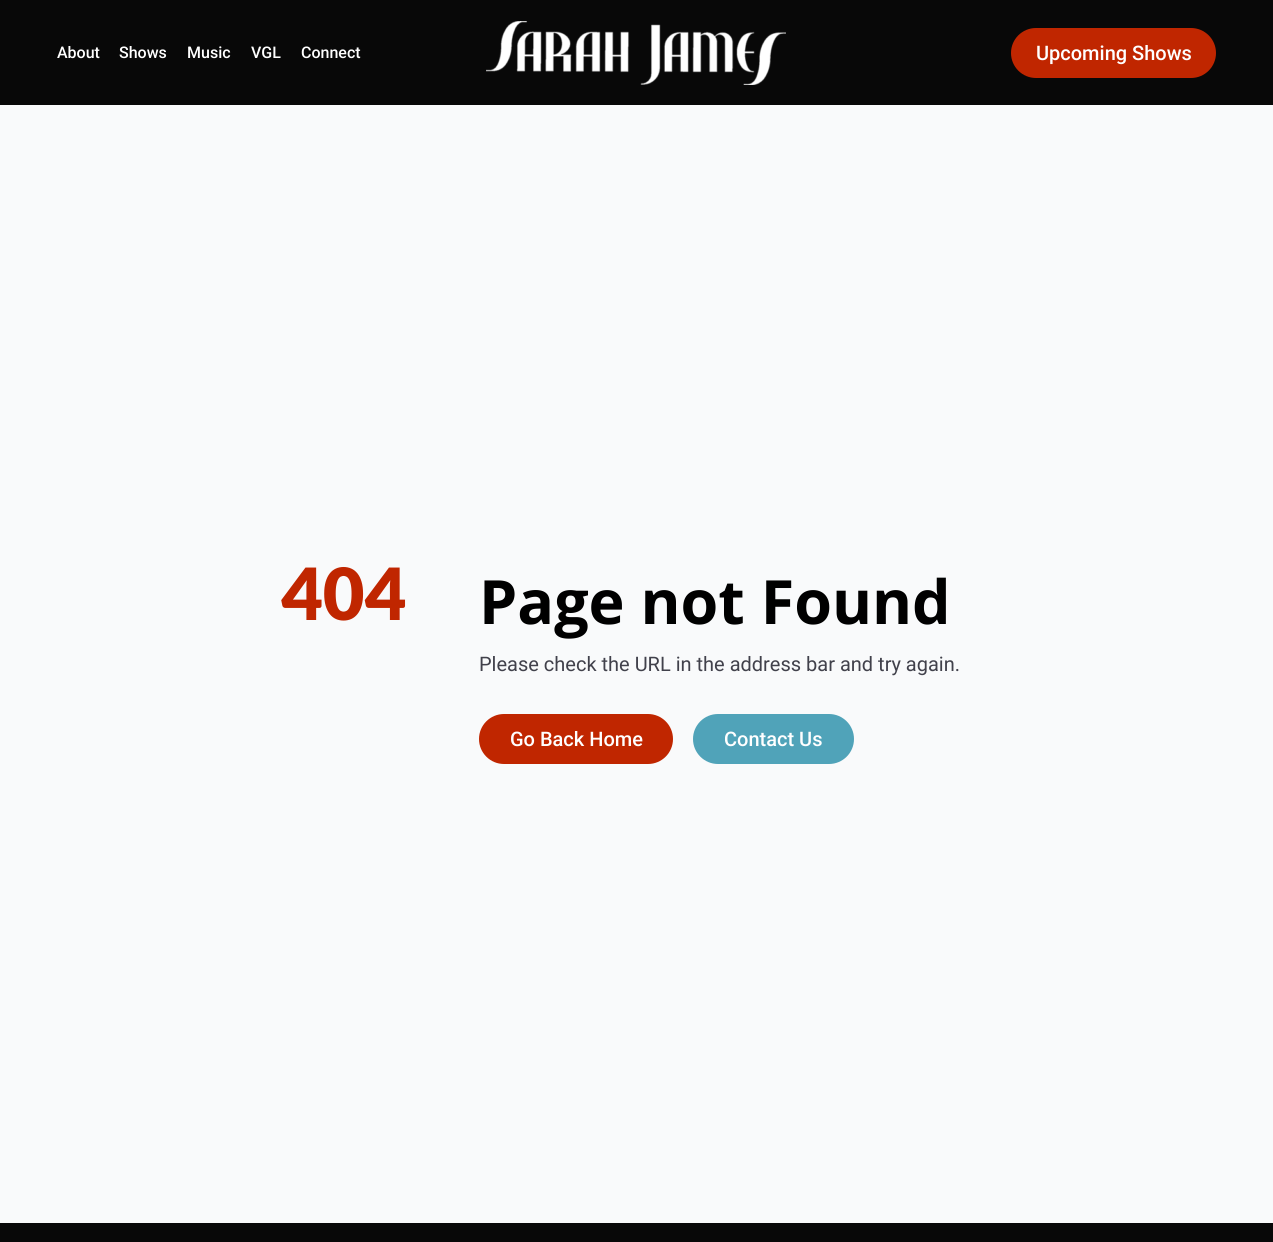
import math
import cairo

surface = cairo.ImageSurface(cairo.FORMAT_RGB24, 1273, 1242)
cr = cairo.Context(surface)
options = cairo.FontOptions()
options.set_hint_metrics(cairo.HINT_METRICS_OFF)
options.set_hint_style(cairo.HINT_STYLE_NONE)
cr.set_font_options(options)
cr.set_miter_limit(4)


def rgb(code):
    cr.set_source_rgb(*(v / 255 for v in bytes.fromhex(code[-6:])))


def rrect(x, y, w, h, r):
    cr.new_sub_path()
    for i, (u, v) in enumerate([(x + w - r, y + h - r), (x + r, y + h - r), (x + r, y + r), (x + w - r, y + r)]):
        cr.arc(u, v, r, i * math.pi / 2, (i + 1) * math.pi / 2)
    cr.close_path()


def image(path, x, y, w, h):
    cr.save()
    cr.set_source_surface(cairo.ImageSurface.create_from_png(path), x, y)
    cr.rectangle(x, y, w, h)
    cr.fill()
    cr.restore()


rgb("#f9fafb")
cr.paint()
rgb("#080808")
cr.rectangle(0, 0, 1273, 105)
cr.fill()
image("img/1.png", 486, 21, 300, 64)
rgb("#c02600")
rrect(1011, 28, 205, 50, 25)
cr.fill()
rrect(479, 714, 194, 50, 25)
cr.fill()
rgb("#50a3b9")
rrect(693, 714, 161, 50, 25)
cr.fill()
rgb("#080808")
cr.rectangle(0, 1223, 1273, 19)
cr.fill()
cr.select_font_face("Roboto Medium")
cr.set_font_size(16)
rgb("#ffffff")
for x, y, s in [
    (57, 58, "About"),
    (119, 58, "Shows"),
    (187, 58, "Music"),
    (251, 58, "VGL"),
    (301, 58, "Connect"),
]:
    cr.move_to(x, y)
    cr.show_text(s)
cr.set_font_size(20)
cr.move_to(1036, 60)
cr.show_text("Upcoming Shows")
cr.select_font_face("Lato Black")
cr.set_font_size(72)
rgb("#c02600")
cr.move_to(281, 620)
cr.show_text("404")
cr.select_font_face("Open Sans", cairo.FONT_SLANT_NORMAL, cairo.FONT_WEIGHT_BOLD)
cr.set_font_size(61)
rgb("#000000")
cr.move_to(479, 624)
cr.show_text("Page not Found")
cr.select_font_face("Roboto")
cr.set_font_size(20)
rgb("#41414b")
cr.move_to(479, 671)
cr.show_text("Please check the URL in the address bar and try again.")
cr.select_font_face("Roboto Medium")
rgb("#ffffff")
cr.move_to(510, 746)
cr.show_text("Go Back Home")
cr.move_to(724, 746)
cr.show_text("Contact Us")
surface.write_to_png("page.png")
